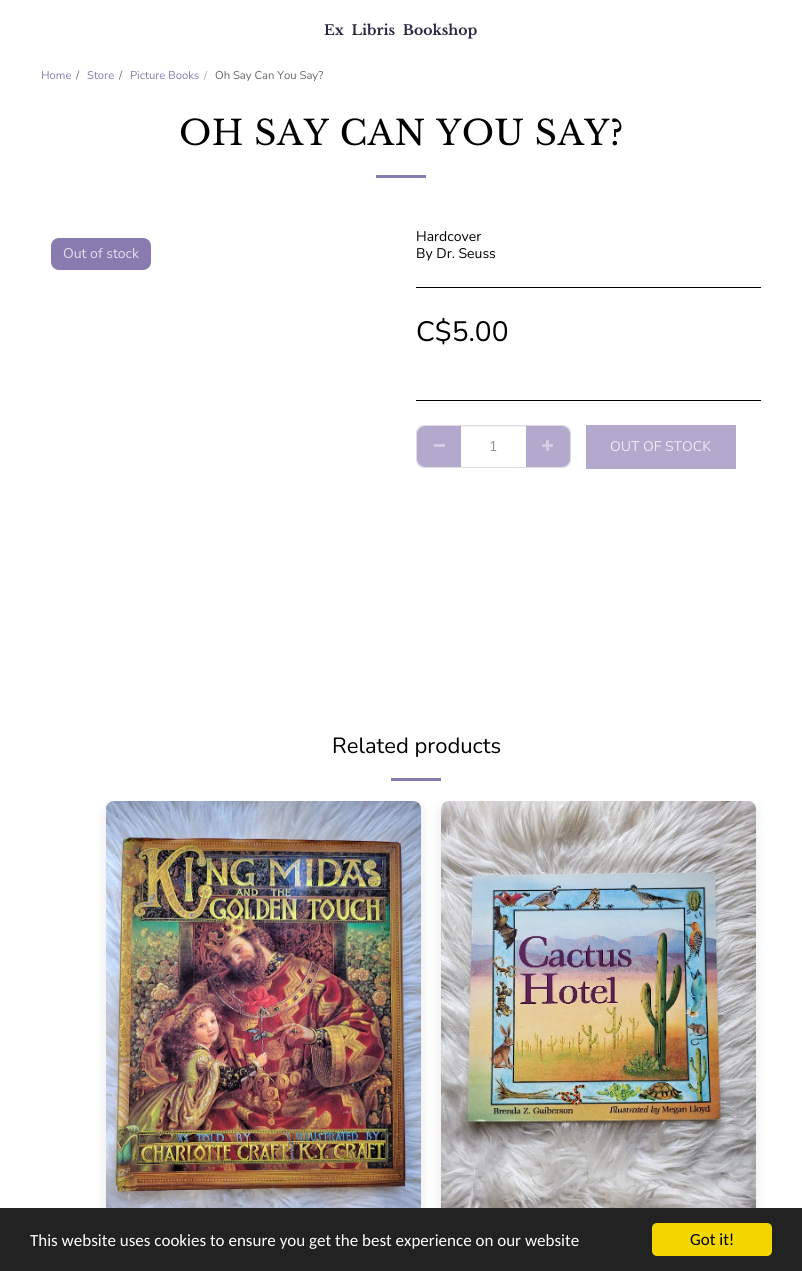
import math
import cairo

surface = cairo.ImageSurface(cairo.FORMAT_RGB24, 802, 1271)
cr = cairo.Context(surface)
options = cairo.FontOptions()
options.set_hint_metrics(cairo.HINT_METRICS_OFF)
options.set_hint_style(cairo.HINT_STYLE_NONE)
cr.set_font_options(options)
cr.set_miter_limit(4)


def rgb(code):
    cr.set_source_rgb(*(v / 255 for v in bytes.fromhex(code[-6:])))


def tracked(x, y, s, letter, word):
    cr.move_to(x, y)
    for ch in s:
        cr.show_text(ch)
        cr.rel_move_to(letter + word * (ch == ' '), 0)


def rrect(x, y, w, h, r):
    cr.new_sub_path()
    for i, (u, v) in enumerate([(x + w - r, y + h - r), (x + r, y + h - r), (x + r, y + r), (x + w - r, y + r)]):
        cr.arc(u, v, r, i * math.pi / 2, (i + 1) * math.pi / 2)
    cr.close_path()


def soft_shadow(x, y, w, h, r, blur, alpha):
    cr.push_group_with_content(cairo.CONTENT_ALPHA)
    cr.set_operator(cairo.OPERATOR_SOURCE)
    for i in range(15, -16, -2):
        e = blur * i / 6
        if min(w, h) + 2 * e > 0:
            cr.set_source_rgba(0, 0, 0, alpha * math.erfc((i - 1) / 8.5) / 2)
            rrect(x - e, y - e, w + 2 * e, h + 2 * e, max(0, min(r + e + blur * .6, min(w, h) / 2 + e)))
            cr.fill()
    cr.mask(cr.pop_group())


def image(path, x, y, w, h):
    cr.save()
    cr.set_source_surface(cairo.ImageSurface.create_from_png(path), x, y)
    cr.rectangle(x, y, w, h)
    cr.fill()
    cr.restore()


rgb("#ffffff")
cr.paint()
rgb("#887bb0")
cr.rectangle(376, 175, 50, 3)
cr.fill()
rrect(51, 238, 100, 32, 8)
cr.fill()
rgb("#000000")
cr.rectangle(416, 287, 345, 1)
cr.fill()
cr.rectangle(416, 400, 345, 1)
cr.fill()
rrect(416.5, 425.5, 154, 42, 7.5)
rgb("#dedede")
cr.set_line_width(1)
cr.stroke()
rgb("#b2a9cc")
cr.new_path()
cr.move_to(425, 426)
cr.line_to(462, 426)
cr.line_to(462, 467)
cr.line_to(425, 467)
cr.curve_to(420.5, 467, 417, 463.5, 417, 459)
cr.line_to(417, 434)
cr.curve_to(417, 429.5, 420.5, 426, 425, 426)
cr.close_path()
cr.fill()
rgb("#d1cce1")
cr.rectangle(434, 444, 11, 3)
cr.fill()
rgb("#b2a9cc")
cr.new_path()
cr.move_to(525, 426)
cr.line_to(562, 426)
cr.curve_to(566.5, 426, 570, 429.5, 570, 434)
cr.line_to(570, 459)
cr.curve_to(570, 463.5, 566.5, 467, 562, 467)
cr.line_to(525, 467)
cr.close_path()
cr.fill()
rgb("#ffffff")
cr.rectangle(461, 427, 65, 40)
cr.fill()
rgb("#f3f3f3")
cr.rectangle(461, 426, 65, 1)
cr.fill()
image("img/1.png", 542, 440, 11, 11)
rgb("#b2a9cc")
cr.rectangle(586, 425, 150, 44)
cr.fill()
rgb("#887bb0")
cr.rectangle(391, 778, 50, 3)
cr.fill()
cr.save()
cr.rectangle(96, 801, 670, 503)
cr.clip()
rgb("#818181")
soft_shadow(106, 805, 315, 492, 8, 6, 0.2)
cr.restore()
image("img/2.png", 106, 801, 315, 407)
cr.save()
cr.rectangle(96, 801, 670, 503)
cr.clip()
rgb("#818181")
soft_shadow(441, 805, 315, 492, 8, 6, 0.2)
cr.restore()
image("img/3.png", 441, 801, 315, 407)
rgb("#222222")
cr.rectangle(0, 1208, 802, 63)
cr.fill()
rgb("#f1d600")
rrect(652, 1223, 120, 33, 5)
cr.fill()
cr.select_font_face("Libre Baskerville", cairo.FONT_SLANT_NORMAL, cairo.FONT_WEIGHT_BOLD)
cr.set_font_size(14)
rgb("#2c2640")
tracked(324, 35, "Ex Libris Bookshop", 0, 4)
cr.select_font_face("Nunito")
cr.set_font_size(11.25)
rgb("#887bb0")
cr.move_to(41, 79)
cr.show_text("Home")
rgb("#666666")
cr.move_to(76, 79)
cr.show_text("/")
rgb("#887bb0")
cr.move_to(87, 79)
cr.show_text("Store")
rgb("#666666")
cr.move_to(119, 79)
cr.show_text("/")
rgb("#887bb0")
cr.move_to(130, 79)
cr.show_text("Picture Books")
rgb("#a3a3a3")
cr.move_to(204, 79)
cr.show_text("/")
rgb("#666666")
cr.move_to(215, 79)
cr.show_text("Oh Say Can You Say?")
cr.select_font_face("Libre Baskerville")
cr.set_font_size(34.2)
rgb("#000000")
tracked(179, 145, "OH SAY CAN YOU SAY?", 0.5, 0)
cr.select_font_face("Nunito")
cr.set_font_size(14)
rgb("#e2dfec")
cr.move_to(63, 258)
cr.show_text("Out of stock")
rgb("#000000")
cr.move_to(416, 241)
cr.show_text("Hardcover")
cr.move_to(416, 258)
cr.show_text("By Dr. Seuss")
cr.set_font_size(28)
cr.move_to(416, 341)
cr.show_text("C$5.00")
cr.set_font_size(14)
rgb("#919191")
cr.move_to(489, 451)
cr.show_text("1")
rgb("#eceaf3")
cr.move_to(610, 451)
cr.show_text("OUT OF STOCK")
cr.set_font_size(22)
rgb("#000000")
cr.move_to(332, 753)
cr.show_text("Related products")
cr.select_font_face("Carlito")
cr.set_font_size(17)
rgb("#ffffff")
cr.move_to(30, 1246)
cr.show_text("This website uses cookies to ensure you get the best experience on our website")
rgb("#000000")
cr.move_to(690, 1245)
cr.show_text("Got it!")
surface.write_to_png("page.png")
